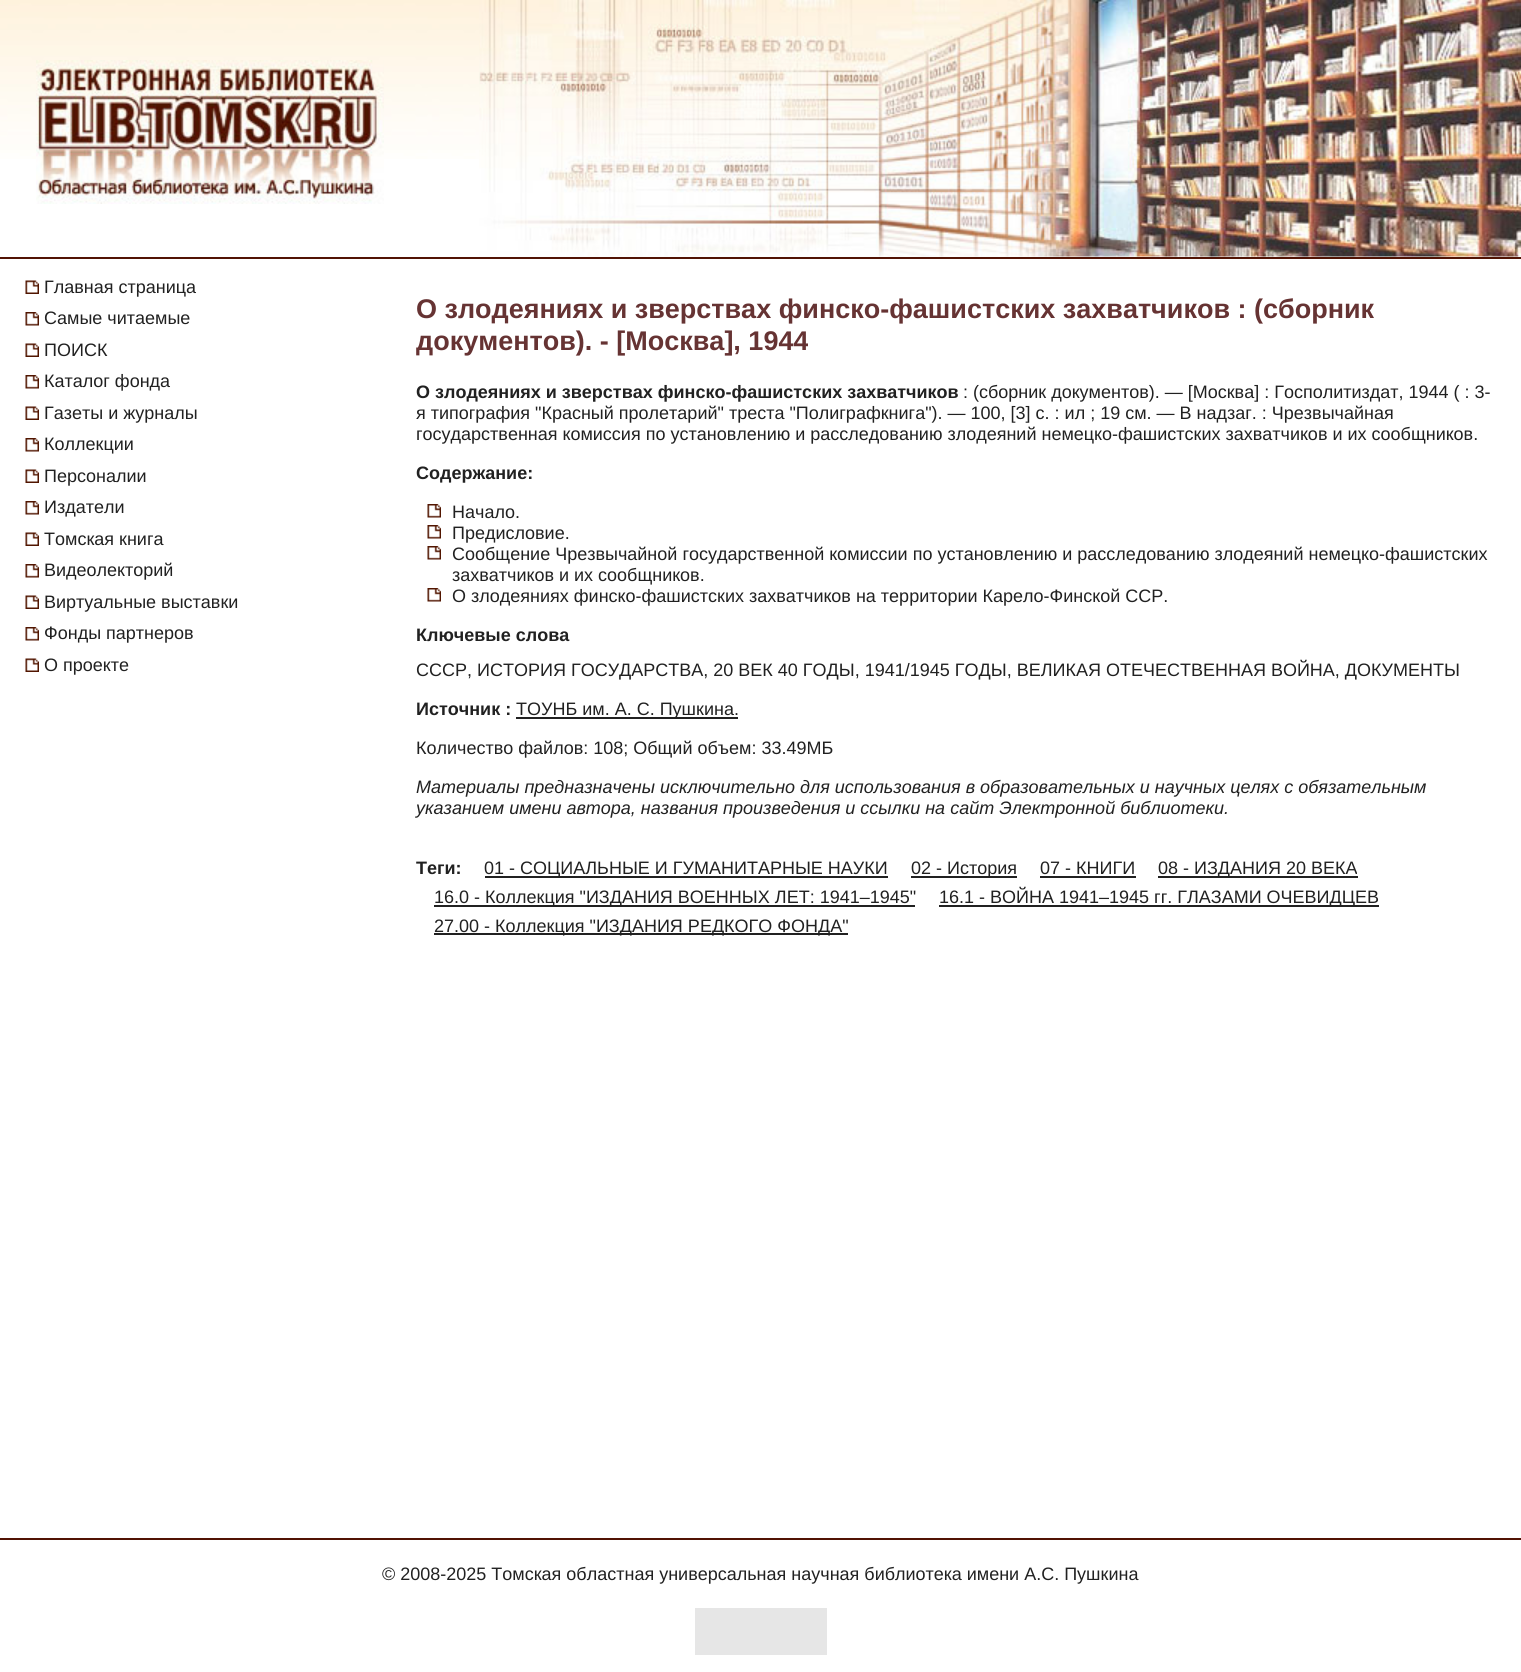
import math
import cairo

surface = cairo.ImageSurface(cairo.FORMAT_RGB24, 1521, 1672)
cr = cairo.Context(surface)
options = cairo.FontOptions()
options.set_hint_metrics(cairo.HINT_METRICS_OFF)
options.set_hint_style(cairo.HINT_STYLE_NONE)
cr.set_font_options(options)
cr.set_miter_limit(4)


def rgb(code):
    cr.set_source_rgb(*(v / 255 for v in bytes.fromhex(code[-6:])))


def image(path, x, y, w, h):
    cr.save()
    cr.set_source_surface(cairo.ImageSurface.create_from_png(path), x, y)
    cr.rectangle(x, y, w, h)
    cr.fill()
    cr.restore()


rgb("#ffffff")
cr.paint()
image("img/1.png", 0, 0, 479, 159)
rgb("#511304")
cr.rectangle(0, 257, 1521, 2)
cr.fill()
image("img/2.png", 36, 60, 348, 144)
image("img/3.png", 479, 0, 1042, 257)
image("img/4.png", 25, 280, 14, 14)
image("img/5.png", 25, 312, 14, 14)
image("img/4.png", 25, 343, 14, 14)
image("img/5.png", 25, 375, 14, 14)
image("img/4.png", 25, 406, 14, 14)
image("img/5.png", 25, 438, 14, 14)
image("img/4.png", 25, 469, 14, 14)
image("img/5.png", 25, 501, 14, 14)
image("img/4.png", 25, 532, 14, 14)
image("img/5.png", 25, 564, 14, 14)
image("img/4.png", 25, 595, 14, 14)
image("img/5.png", 25, 627, 14, 14)
image("img/4.png", 25, 658, 14, 14)
image("img/6.png", 427, 504, 14, 14)
image("img/6.png", 427, 525, 14, 14)
image("img/6.png", 427, 546, 14, 14)
image("img/6.png", 427, 588, 14, 14)
for x, y, w, h, color in [
    (516, 717, 222, 2, "#212121"),
    (485, 876, 403, 2, "#212121"),
    (911, 876, 106, 2, "#212121"),
    (1040, 876, 96, 2, "#212121"),
    (1158, 876, 200, 2, "#212121"),
    (434, 905, 481, 2, "#212121"),
    (939, 905, 440, 2, "#212121"),
    (434, 933, 414, 2, "#212121"),
    (0, 1538, 1521, 2, "#511304"),
    (695, 1608, 132, 47, "#e6e6e6"),
]:
    rgb(color)
    cr.rectangle(x, y, w, h)
    cr.fill()
cr.select_font_face("Liberation Sans")
cr.set_font_size(18)
rgb("#212121")
for x, y, s in [
    (44, 293, "Главная страница"),
    (44, 324, "Самые читаемые"),
    (44, 356, "ПОИСК"),
    (44, 387, "Каталог фонда"),
    (44, 419, "Газеты и журналы"),
    (44, 450, "Коллекции"),
    (44, 482, "Персоналии"),
    (44, 513, "Издатели"),
    (44, 545, "Томская книга"),
    (44, 576, "Видеолекторий"),
    (44, 608, "Виртуальные выставки"),
    (44, 639, "Фонды партнеров"),
    (44, 671, "О проекте"),
]:
    cr.move_to(x, y)
    cr.show_text(s)
cr.select_font_face("Liberation Sans", cairo.FONT_SLANT_NORMAL, cairo.FONT_WEIGHT_BOLD)
cr.set_font_size(27)
rgb("#663333")
cr.move_to(416, 318)
cr.show_text("О злодеяниях и зверствах финско-фашистских захватчиков : (сборник")
cr.move_to(416, 350)
cr.show_text("документов). - [Москва], 1944")
cr.set_font_size(18)
rgb("#212121")
cr.move_to(416, 398)
cr.show_text("О злодеяниях и зверствах финско-фашистских захватчиков")
cr.select_font_face("Liberation Sans")
for x, y, s in [
    (963, 398, ": (сборник документов). — [Москва] : Госполитиздат, 1944 ( : 3-"),
    (416, 419, "я типография \"Красный пролетарий\" треста \"Полиграфкнига\"). — 100, [3] с. : ил ; 19 см. — В надзаг. : Чрезвычайная"),
    (416, 440, "государственная комиссия по установлению и расследованию злодеяний немецко-фашистских захватчиков и их сообщников."),
]:
    cr.move_to(x, y)
    cr.show_text(s)
cr.select_font_face("Liberation Sans", cairo.FONT_SLANT_NORMAL, cairo.FONT_WEIGHT_BOLD)
cr.move_to(416, 479)
cr.show_text("Содержание:")
cr.select_font_face("Liberation Sans")
for x, y, s in [
    (452, 518, "Начало."),
    (452, 539, "Предисловие."),
    (452, 560, "Сообщение Чрезвычайной государственной комиссии по установлению и расследованию злодеяний немецко-фашистских"),
    (452, 581, "захватчиков и их сообщников."),
    (452, 602, "О злодеяниях финско-фашистских захватчиков на территории Карело-Финской ССР."),
]:
    cr.move_to(x, y)
    cr.show_text(s)
cr.select_font_face("Liberation Sans", cairo.FONT_SLANT_NORMAL, cairo.FONT_WEIGHT_BOLD)
cr.move_to(416, 641)
cr.show_text("Ключевые слова")
cr.select_font_face("Liberation Sans")
cr.move_to(416, 676)
cr.show_text("СССР, ИСТОРИЯ ГОСУДАРСТВА, 20 ВЕК 40 ГОДЫ, 1941/1945 ГОДЫ, ВЕЛИКАЯ ОТЕЧЕСТВЕННАЯ ВОЙНА, ДОКУМЕНТЫ")
cr.select_font_face("Liberation Sans", cairo.FONT_SLANT_NORMAL, cairo.FONT_WEIGHT_BOLD)
cr.move_to(416, 715)
cr.show_text("Источник :")
cr.select_font_face("Liberation Sans")
cr.move_to(516, 715)
cr.show_text("ТОУНБ им. А. С. Пушкина.")
cr.move_to(416, 754)
cr.show_text("Количество файлов: 108; Общий объем: 33.49МБ")
cr.select_font_face("Liberation Sans", cairo.FONT_SLANT_ITALIC)
cr.move_to(416, 793)
cr.show_text("Материалы предназначены исключительно для использования в образовательных и научных целях с обязательным")
cr.move_to(416, 814)
cr.show_text("указанием имени автора, названия произведения и ссылки на сайт Электронной библиотеки.")
cr.select_font_face("Liberation Sans", cairo.FONT_SLANT_NORMAL, cairo.FONT_WEIGHT_BOLD)
cr.move_to(416, 874)
cr.show_text("Теги:")
cr.select_font_face("Liberation Sans")
for x, y, s in [
    (484, 874, "01 - СОЦИАЛЬНЫЕ И ГУМАНИТАРНЫЕ НАУКИ"),
    (911, 874, "02 - История"),
    (1040, 874, "07 - КНИГИ"),
    (1158, 874, "08 - ИЗДАНИЯ 20 ВЕКА"),
    (434, 903, "16.0 - Коллекция \"ИЗДАНИЯ ВОЕННЫХ ЛЕТ: 1941–1945\""),
    (939, 903, "16.1 - ВОЙНА 1941–1945 гг. ГЛАЗАМИ ОЧЕВИДЦЕВ"),
    (434, 932, "27.00 - Коллекция \"ИЗДАНИЯ РЕДКОГО ФОНДА\""),
    (382, 1580, "© 2008-2025 Томская областная универсальная научная библиотека имени А.С. Пушкина"),
]:
    cr.move_to(x, y)
    cr.show_text(s)
surface.write_to_png("page.png")
